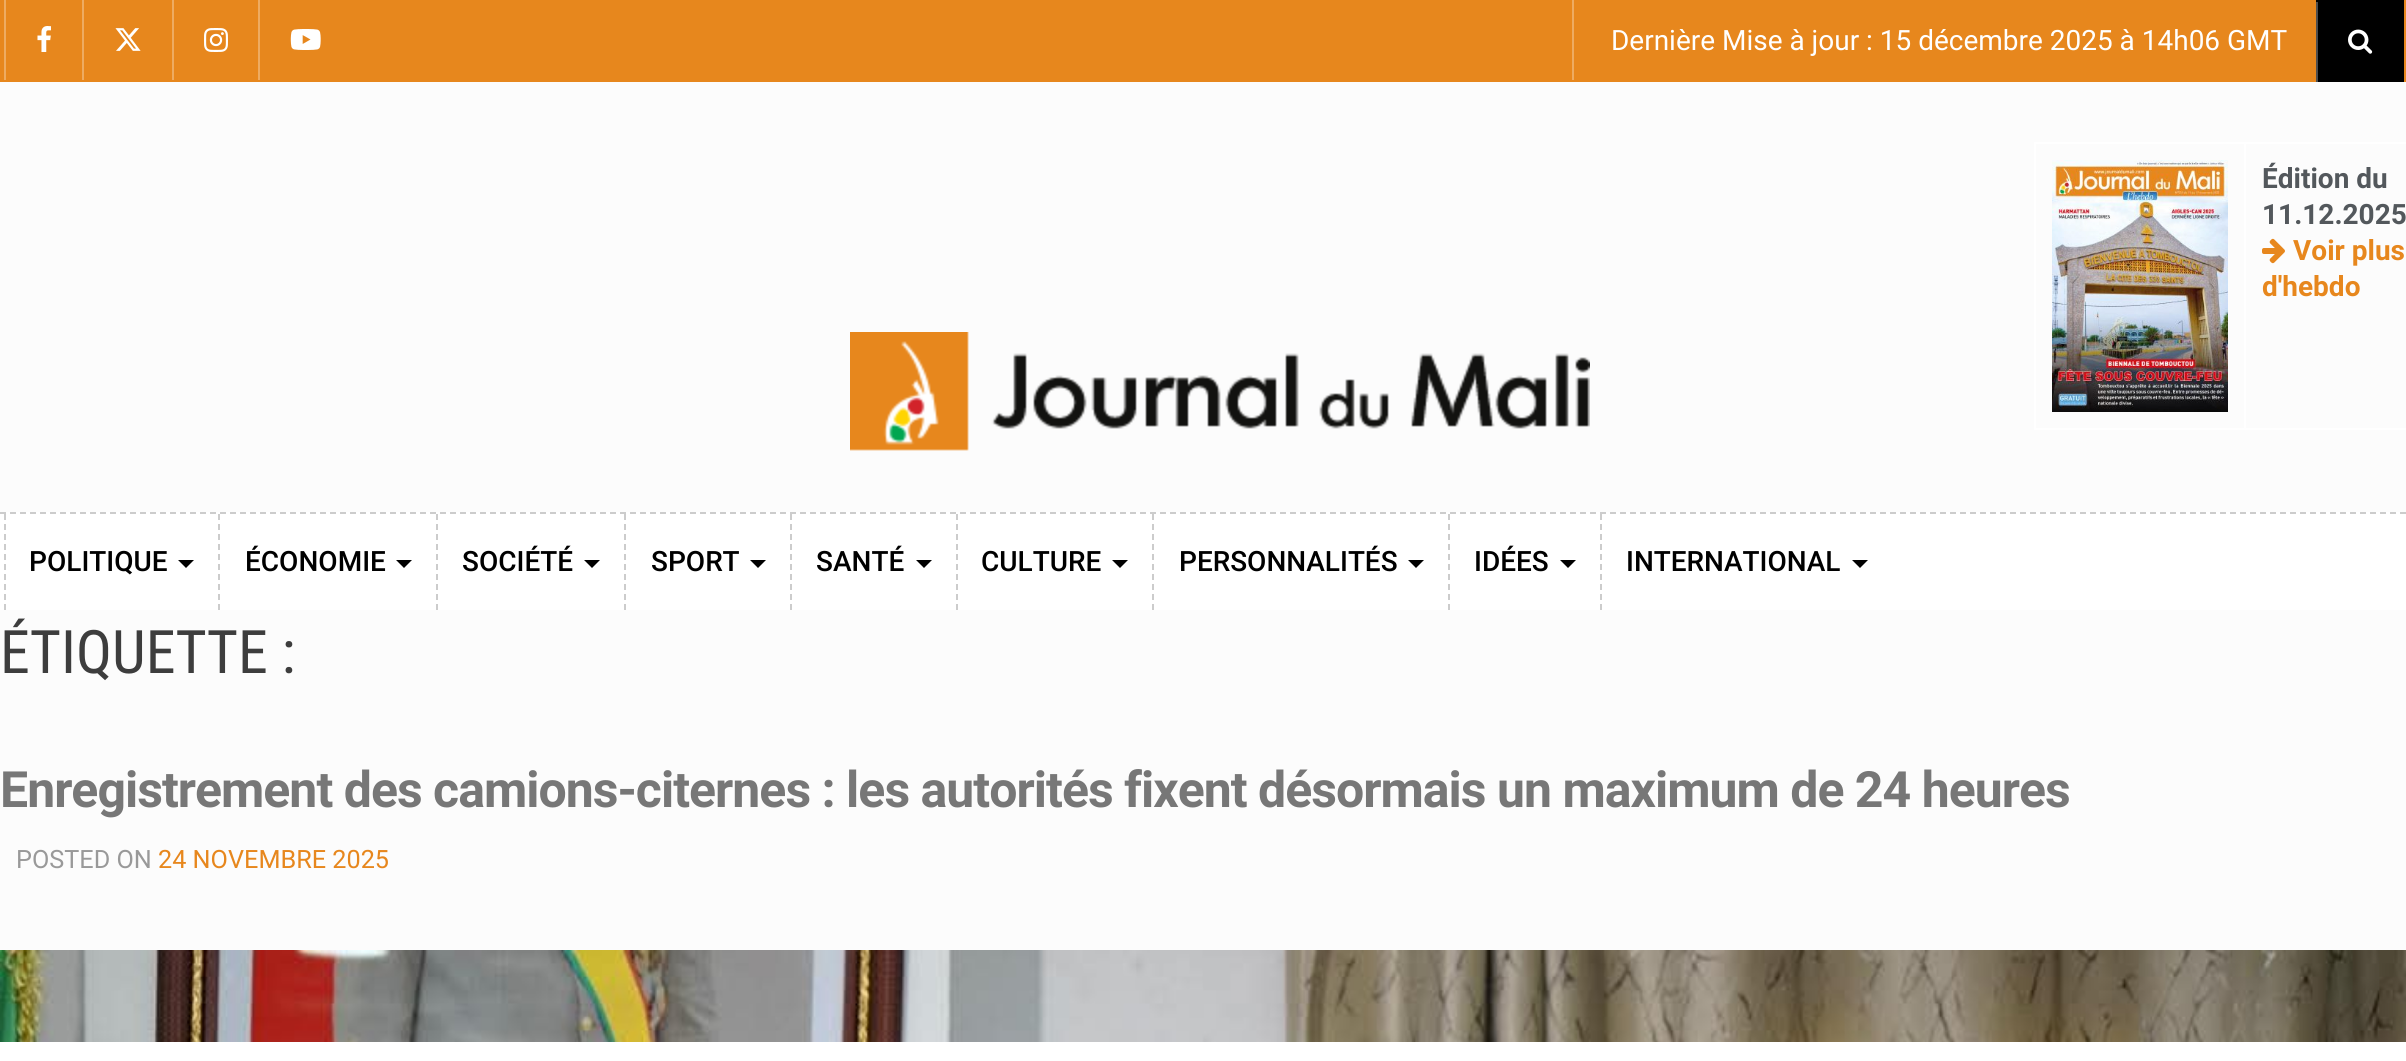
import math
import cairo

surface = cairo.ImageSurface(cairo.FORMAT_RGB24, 2406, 1061)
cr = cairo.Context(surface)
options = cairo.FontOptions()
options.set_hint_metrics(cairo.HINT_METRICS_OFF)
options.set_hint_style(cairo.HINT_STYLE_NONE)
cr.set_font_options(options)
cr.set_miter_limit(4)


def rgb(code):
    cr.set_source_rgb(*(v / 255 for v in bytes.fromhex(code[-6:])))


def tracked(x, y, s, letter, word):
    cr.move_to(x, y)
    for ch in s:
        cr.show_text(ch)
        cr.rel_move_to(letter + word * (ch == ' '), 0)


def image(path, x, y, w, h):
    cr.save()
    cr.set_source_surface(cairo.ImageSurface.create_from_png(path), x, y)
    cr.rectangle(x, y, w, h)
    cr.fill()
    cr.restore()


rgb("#fcfcfc")
cr.paint()
rgb("#e7871d")
cr.rectangle(0, 0, 2406, 82)
cr.fill()
rgb("#eeab61")
cr.rectangle(4, 0, 2, 80)
cr.fill()
image("img/1.png", 37, 26, 14, 26)
cr.rectangle(82, 0, 2, 80)
cr.fill()
image("img/2.png", 115, 28, 26, 23)
cr.rectangle(172, 0, 2, 80)
cr.fill()
image("img/3.png", 204, 28, 24, 24)
cr.rectangle(258, 0, 2, 80)
cr.fill()
image("img/4.png", 290, 29, 31, 21)
for x, y, w, h, color in [
    (1572, 0, 2, 80, "#eeab61"),
    (2316, 0, 88, 82, "#000000"),
    (2316, 2, 2, 80, "#4d4d4d"),
]:
    rgb(color)
    cr.rectangle(x, y, w, h)
    cr.fill()
image("img/5.png", 2348, 29, 25, 25)
for x, y, w, h, color in [
    (2246, 142, 160, 2, "#ffffff"),
    (2034, 428, 372, 2, "#ffffff"),
    (2034, 142, 2, 288, "#ffffff"),
    (2034, 142, 212, 2, "#ffffff"),
    (2244, 142, 2, 288, "#ffffff"),
]:
    rgb(color)
    cr.rectangle(x, y, w, h)
    cr.fill()
image("img/6.png", 2052, 160, 176, 252)
image("img/7.png", 2262, 238, 23, 26)
image("img/8.png", 850, 332, 740, 119)
cr.rectangle(0, 512, 2406, 98)
cr.fill()
cr.new_path()
cr.move_to(0, 513)
cr.line_to(2406, 513)
rgb("#cccccc")
cr.set_dash([6, 4])
cr.stroke()
cr.new_path()
cr.move_to(5, 514)
cr.line_to(5, 610)
cr.stroke()
rgb("#000000")
cr.new_path()
cr.move_to(178, 560)
cr.line_to(194, 560)
cr.line_to(186, 568)
cr.close_path()
cr.fill()
cr.new_path()
cr.move_to(219, 514)
cr.line_to(219, 610)
rgb("#cccccc")
cr.stroke()
rgb("#000000")
cr.new_path()
cr.move_to(396, 560)
cr.line_to(412, 560)
cr.line_to(404, 568)
cr.close_path()
cr.fill()
cr.new_path()
cr.move_to(437, 514)
cr.line_to(437, 610)
rgb("#cccccc")
cr.stroke()
rgb("#000000")
cr.new_path()
cr.move_to(584, 560)
cr.line_to(600, 560)
cr.line_to(592, 568)
cr.close_path()
cr.fill()
cr.new_path()
cr.move_to(625, 514)
cr.line_to(625, 610)
rgb("#cccccc")
cr.stroke()
rgb("#000000")
cr.new_path()
cr.move_to(750, 560)
cr.line_to(766, 560)
cr.line_to(758, 568)
cr.close_path()
cr.fill()
cr.new_path()
cr.move_to(791, 514)
cr.line_to(791, 610)
rgb("#cccccc")
cr.stroke()
rgb("#000000")
cr.new_path()
cr.move_to(916, 560)
cr.line_to(932, 560)
cr.line_to(924, 568)
cr.close_path()
cr.fill()
cr.new_path()
cr.move_to(957, 514)
cr.line_to(957, 610)
rgb("#cccccc")
cr.stroke()
rgb("#000000")
cr.new_path()
cr.move_to(1112, 560)
cr.line_to(1128, 560)
cr.line_to(1120, 568)
cr.close_path()
cr.fill()
cr.new_path()
cr.move_to(1153, 514)
cr.line_to(1153, 610)
rgb("#cccccc")
cr.stroke()
rgb("#000000")
cr.new_path()
cr.move_to(1408, 560)
cr.line_to(1424, 560)
cr.line_to(1416, 568)
cr.close_path()
cr.fill()
cr.new_path()
cr.move_to(1449, 514)
cr.line_to(1449, 610)
rgb("#cccccc")
cr.stroke()
rgb("#000000")
cr.new_path()
cr.move_to(1560, 560)
cr.line_to(1576, 560)
cr.line_to(1568, 568)
cr.close_path()
cr.fill()
cr.new_path()
cr.move_to(1601, 514)
cr.line_to(1601, 610)
rgb("#cccccc")
cr.stroke()
rgb("#000000")
cr.new_path()
cr.move_to(1852, 560)
cr.line_to(1868, 560)
cr.line_to(1860, 568)
cr.close_path()
cr.fill()
image("img/9.png", 0, 950, 2406, 92)
rgb("#ffffff")
cr.rectangle(0, 1042, 2406, 19)
cr.fill()
cr.select_font_face("Roboto")
cr.set_font_size(28)
cr.move_to(1611, 50)
cr.show_text("Dernière Mise à jour : 15 décembre 2025 à 14h06 GMT")
cr.select_font_face("Roboto", cairo.FONT_SLANT_NORMAL, cairo.FONT_WEIGHT_BOLD)
rgb("#53585c")
cr.move_to(2262, 188)
cr.show_text("Édition du")
cr.move_to(2262, 224)
cr.show_text("11.12.2025")
rgb("#e7871d")
cr.move_to(2293, 260)
cr.show_text("Voir plus")
cr.move_to(2262, 296)
cr.show_text("d'hebdo")
cr.select_font_face("Roboto Medium")
rgb("#000000")
for x, y, s in [
    (29, 571, "POLITIQUE"),
    (245, 571, "ÉCONOMIE"),
    (462, 571, "SOCIÉTÉ"),
    (651, 571, "SPORT"),
    (816, 571, "SANTÉ"),
    (981, 571, "CULTURE"),
    (1179, 571, "PERSONNALITÉS"),
    (1474, 571, "IDÉES"),
    (1626, 571, "INTERNATIONAL"),
]:
    cr.move_to(x, y)
    cr.show_text(s)
cr.select_font_face("Roboto Condensed")
cr.set_font_size(60)
rgb("#3d3d3d")
cr.move_to(0, 673)
cr.show_text("ÉTIQUETTE :")
cr.select_font_face("Roboto", cairo.FONT_SLANT_NORMAL, cairo.FONT_WEIGHT_BOLD)
cr.set_font_size(50)
rgb("#777777")
tracked(0, 807, "Enregistrement des camions-citernes : les autorités fixent désormais un maximum de 24 heures", -1, 0)
cr.select_font_face("Roboto")
cr.set_font_size(25.25)
rgb("#999999")
cr.move_to(16, 868)
cr.show_text("POSTED ON")
rgb("#e7871d")
cr.move_to(158, 868)
cr.show_text("24 NOVEMBRE 2025")
surface.write_to_png("page.png")
